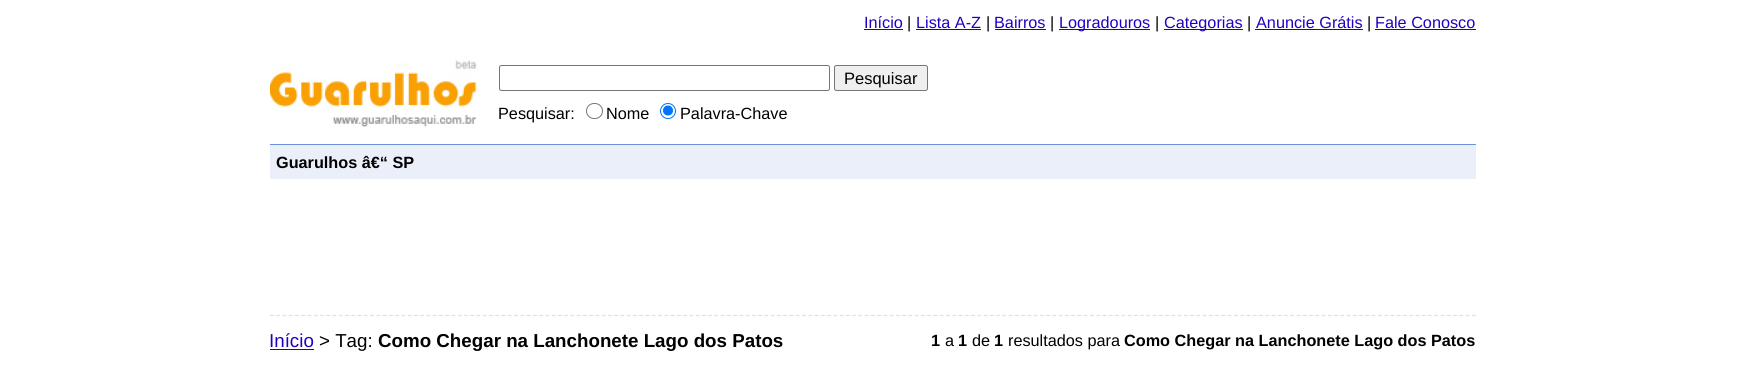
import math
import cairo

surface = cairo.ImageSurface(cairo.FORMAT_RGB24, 1745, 380)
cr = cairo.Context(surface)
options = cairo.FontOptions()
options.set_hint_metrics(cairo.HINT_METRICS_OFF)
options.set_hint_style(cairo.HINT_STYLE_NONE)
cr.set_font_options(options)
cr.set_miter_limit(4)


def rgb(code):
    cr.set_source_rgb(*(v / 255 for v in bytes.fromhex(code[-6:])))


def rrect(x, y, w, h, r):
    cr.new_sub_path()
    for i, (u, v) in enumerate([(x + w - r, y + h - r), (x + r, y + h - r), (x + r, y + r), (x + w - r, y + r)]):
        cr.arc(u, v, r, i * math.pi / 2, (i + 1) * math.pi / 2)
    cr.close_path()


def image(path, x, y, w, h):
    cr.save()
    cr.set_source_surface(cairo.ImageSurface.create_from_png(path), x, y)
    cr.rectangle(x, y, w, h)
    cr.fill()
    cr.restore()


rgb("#ffffff")
cr.paint()
for x, y, w, h, color in [
    (864, 29, 39, 1, "#2200c1"),
    (916, 29, 65, 1, "#2200c1"),
    (995, 29, 51, 1, "#2200c1"),
    (1059, 29, 91, 1, "#2200c1"),
    (1164, 29, 79, 1, "#2200c1"),
    (1255, 29, 108, 1, "#2200c1"),
    (1375, 29, 101, 1, "#2200c1"),
]:
    rgb(color)
    cr.rectangle(x, y, w, h)
    cr.fill()
image("img/1.png", 270, 60, 207, 67)
rrect(499.5, 65.5, 330, 25, 2)
rgb("#767676")
cr.set_line_width(1)
cr.stroke()
rgb("#efefef")
rrect(834.5, 65.5, 93, 25, 2)
cr.fill_preserve()
rgb("#767676")
cr.stroke()
rrect(586.5, 103.5, 16, 15, 7.5)
cr.stroke()
cr.arc(668, 111, 7.5, 0, 2 * math.pi)
rgb("#0075ff")
cr.stroke()
cr.arc(668, 110.5, 5, 0, 2 * math.pi)
cr.fill()
rgb("#ebeff9")
cr.rectangle(270, 145, 1206, 34)
cr.fill()
rgb("#6b90da")
cr.rectangle(270, 144, 1206, 1)
cr.fill()
cr.new_path()
cr.move_to(270, 315.5)
cr.line_to(1476, 315.5)
rgb("#d3e1f9")
cr.set_line_width(1.2)
cr.set_dash([3.75, 2.51])
cr.stroke()
rgb("#2200c1")
cr.rectangle(270, 349, 44, 1)
cr.fill()
cr.select_font_face("Liberation Sans")
cr.set_font_size(16.25)
cr.move_to(864, 28)
cr.show_text("Início")
rgb("#000000")
cr.move_to(907, 28)
cr.show_text("|")
rgb("#2200c1")
cr.move_to(916, 28)
cr.show_text("Lista A-Z")
rgb("#000000")
cr.move_to(986, 28)
cr.show_text("|")
rgb("#2200c1")
cr.move_to(994, 28)
cr.show_text("Bairros")
rgb("#000000")
cr.move_to(1050, 28)
cr.show_text("|")
rgb("#2200c1")
cr.move_to(1059, 28)
cr.show_text("Logradouros")
rgb("#000000")
cr.move_to(1155, 28)
cr.show_text("|")
rgb("#2200c1")
cr.move_to(1164, 28)
cr.show_text("Categorias")
rgb("#000000")
cr.move_to(1247, 28)
cr.show_text("|")
rgb("#2200c1")
cr.move_to(1256, 28)
cr.show_text("Anuncie Grátis")
rgb("#000000")
cr.move_to(1367, 28)
cr.show_text("|")
rgb("#2200c1")
cr.move_to(1375, 28)
cr.show_text("Fale Conosco")
cr.set_font_size(16.5)
rgb("#000000")
cr.move_to(844, 84)
cr.show_text("Pesquisar")
cr.set_font_size(16.25)
for x, y, s in [
    (498, 119, "Pesquisar:"),
    (606, 119, "Nome"),
    (680, 119, "Palavra-Chave"),
]:
    cr.move_to(x, y)
    cr.show_text(s)
cr.select_font_face("Liberation Sans", cairo.FONT_SLANT_NORMAL, cairo.FONT_WEIGHT_BOLD)
cr.move_to(276, 168)
cr.show_text("Guarulhos â€“ SP")
cr.select_font_face("Liberation Sans")
cr.set_font_size(18.75)
rgb("#2200c1")
cr.move_to(269, 347)
cr.show_text("Início")
rgb("#000000")
cr.move_to(319, 347)
cr.show_text("> Tag:")
cr.select_font_face("Liberation Sans", cairo.FONT_SLANT_NORMAL, cairo.FONT_WEIGHT_BOLD)
cr.move_to(378, 347)
cr.show_text("Como Chegar na Lanchonete Lago dos Patos")
cr.set_font_size(16.25)
cr.move_to(931, 346)
cr.show_text("1")
cr.select_font_face("Liberation Sans")
cr.move_to(945, 346)
cr.show_text("a")
cr.select_font_face("Liberation Sans", cairo.FONT_SLANT_NORMAL, cairo.FONT_WEIGHT_BOLD)
cr.move_to(958, 346)
cr.show_text("1")
cr.select_font_face("Liberation Sans")
cr.move_to(972, 346)
cr.show_text("de")
cr.select_font_face("Liberation Sans", cairo.FONT_SLANT_NORMAL, cairo.FONT_WEIGHT_BOLD)
cr.move_to(994, 346)
cr.show_text("1")
cr.select_font_face("Liberation Sans")
cr.move_to(1008, 346)
cr.show_text("resultados para")
cr.select_font_face("Liberation Sans", cairo.FONT_SLANT_NORMAL, cairo.FONT_WEIGHT_BOLD)
cr.move_to(1124, 346)
cr.show_text("Como Chegar na Lanchonete Lago dos Patos")
surface.write_to_png("page.png")
